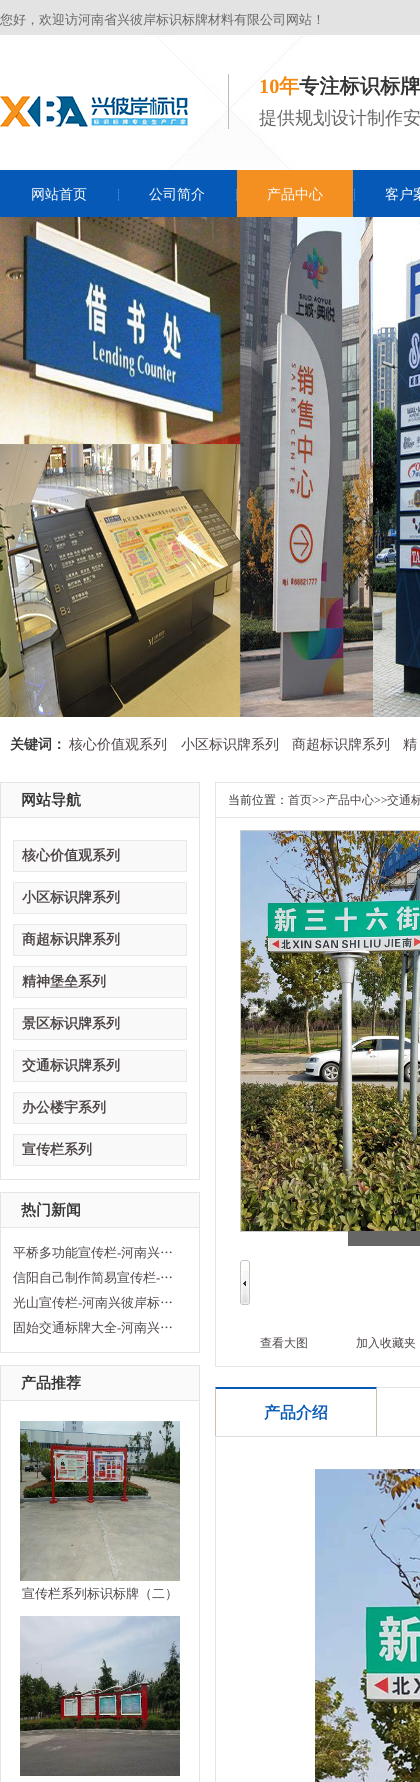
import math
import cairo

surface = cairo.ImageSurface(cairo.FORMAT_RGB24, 420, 1782)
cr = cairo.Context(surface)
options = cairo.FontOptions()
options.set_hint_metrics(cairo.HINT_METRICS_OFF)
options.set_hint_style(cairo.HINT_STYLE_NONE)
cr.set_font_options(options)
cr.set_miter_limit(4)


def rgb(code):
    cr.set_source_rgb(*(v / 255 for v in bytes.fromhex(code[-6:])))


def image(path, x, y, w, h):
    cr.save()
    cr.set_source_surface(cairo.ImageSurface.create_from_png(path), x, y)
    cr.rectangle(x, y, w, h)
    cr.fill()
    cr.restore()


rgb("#ffffff")
cr.paint()
image("img/1.png", 0, 0, 420, 170)
image("img/2.png", 0, 95, 188, 58)
rgb("#bbbbbb")
cr.rectangle(228, 74, 1, 55)
cr.fill()
rgb("#0659b6")
cr.rectangle(0, 170, 420, 47)
cr.fill()
image("img/3.png", 118, 189, 1, 12)
image("img/3.png", 236, 189, 1, 12)
rgb("#f48f22")
cr.rectangle(237, 170, 116, 47)
cr.fill()
image("img/3.png", 354, 189, 1, 12)
image("img/4.png", 0, 217, 420, 500)
cr.rectangle(0.5, 782.5, 199, 397)
rgb("#e5e5e5")
cr.set_line_width(1)
cr.stroke()
rgb("#fafafa")
cr.rectangle(1, 783, 198, 34)
cr.fill()
rgb("#e5e5e5")
cr.rectangle(1, 817, 198, 1)
cr.fill()
rgb("#f9f9f9")
cr.rectangle(13.5, 840.5, 173, 31)
cr.fill_preserve()
rgb("#e9e9e9")
cr.stroke()
rgb("#f9f9f9")
cr.rectangle(13.5, 882.5, 173, 31)
cr.fill_preserve()
rgb("#e9e9e9")
cr.stroke()
rgb("#f9f9f9")
cr.rectangle(13.5, 924.5, 173, 31)
cr.fill_preserve()
rgb("#e9e9e9")
cr.stroke()
rgb("#f9f9f9")
cr.rectangle(13.5, 966.5, 173, 31)
cr.fill_preserve()
rgb("#e9e9e9")
cr.stroke()
rgb("#f9f9f9")
cr.rectangle(13.5, 1008.5, 173, 31)
cr.fill_preserve()
rgb("#e9e9e9")
cr.stroke()
rgb("#f9f9f9")
cr.rectangle(13.5, 1050.5, 173, 31)
cr.fill_preserve()
rgb("#e9e9e9")
cr.stroke()
rgb("#f9f9f9")
cr.rectangle(13.5, 1092.5, 173, 31)
cr.fill_preserve()
rgb("#e9e9e9")
cr.stroke()
rgb("#f9f9f9")
cr.rectangle(13.5, 1134.5, 173, 31)
cr.fill_preserve()
rgb("#e9e9e9")
cr.stroke()
cr.rectangle(0.5, 1192.5, 199, 160)
rgb("#e5e5e5")
cr.stroke()
rgb("#fafafa")
cr.rectangle(1, 1193, 198, 34)
cr.fill()
rgb("#e5e5e5")
cr.rectangle(1, 1227, 198, 1)
cr.fill()
cr.rectangle(0.5, 1365.5, 199, 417)
cr.stroke()
rgb("#fafafa")
cr.rectangle(1, 1366, 198, 34)
cr.fill()
rgb("#e5e5e5")
cr.rectangle(1, 1400, 198, 1)
cr.fill()
image("img/5.png", 20, 1421, 160, 160)
image("img/6.png", 20, 1616, 160, 160)
cr.rectangle(215, 782, 205, 1)
cr.fill()
cr.rectangle(215, 782, 1, 35)
cr.fill()
cr.rectangle(215.5, 817.5, 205, 549)
cr.stroke()
cr.rectangle(240.5, 830.5, 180, 401)
rgb("#cccccc")
cr.stroke()
image("img/7.png", 241, 831, 179, 400)
image("img/8.png", 240, 1260, 10, 45)
for x, y, w, h, color in [
    (215, 1387, 1, 395, "#e5e5e5"),
    (376, 1387, 44, 1, "#e5e5e5"),
    (216, 1436, 204, 1, "#dfdfdf"),
]:
    rgb(color)
    cr.rectangle(x, y, w, h)
    cr.fill()
rgb("#0659b6")
cr.new_path()
cr.move_to(215, 1387)
cr.line_to(377, 1387)
cr.line_to(376, 1389)
cr.line_to(216, 1389)
cr.close_path()
cr.fill()
rgb("#cfbfb1")
cr.new_path()
cr.move_to(377, 1387)
cr.line_to(377, 1436)
cr.line_to(376, 1436)
cr.line_to(376, 1389)
cr.close_path()
cr.fill()
cr.new_path()
cr.move_to(215, 1436)
cr.line_to(215, 1387)
cr.line_to(216, 1389)
cr.line_to(216, 1436)
cr.close_path()
cr.fill()
image("img/9.png", 315, 1469, 105, 313)
rgb("#666666")
cr.rectangle(348, 1231, 72, 15)
cr.fill()
cr.select_font_face("WenQuanYi Zen Hei Medium")
cr.set_font_size(13)
cr.move_to(0, 24)
cr.show_text("您好，欢迎访河南省兴彼岸标识标牌材料有限公司网站！")
cr.select_font_face("Liberation Serif", cairo.FONT_SLANT_NORMAL, cairo.FONT_WEIGHT_BOLD)
cr.set_font_size(20.25)
rgb("#f6870f")
cr.move_to(259, 93)
cr.show_text("10")
cr.select_font_face("WenQuanYi Zen Hei", cairo.FONT_SLANT_NORMAL, cairo.FONT_WEIGHT_BOLD)
cr.move_to(279, 93)
cr.show_text("年")
rgb("#333333")
cr.move_to(299, 93)
cr.show_text("专注标识标牌")
cr.select_font_face("WenQuanYi Zen Hei Medium")
cr.set_font_size(18)
rgb("#666666")
cr.move_to(259, 124)
cr.show_text("提供规划设计制作安")
cr.set_font_size(14)
rgb("#ffffff")
for x, y, s in [
    (31, 199, "网站首页"),
    (149, 199, "公司简介"),
    (267, 199, "产品中心"),
    (385, 199, "客户案"),
]:
    cr.move_to(x, y)
    cr.show_text(s)
cr.select_font_face("WenQuanYi Zen Hei", cairo.FONT_SLANT_NORMAL, cairo.FONT_WEIGHT_BOLD)
rgb("#333333")
cr.move_to(10, 749)
cr.show_text("关键词：")
cr.select_font_face("WenQuanYi Zen Hei Medium")
rgb("#4e4646")
for x, y, s in [
    (69, 749, "核心价值观系列"),
    (181, 749, "小区标识牌系列"),
    (292, 749, "商超标识牌系列"),
    (403, 749, "精"),
]:
    cr.move_to(x, y)
    cr.show_text(s)
cr.select_font_face("WenQuanYi Zen Hei", cairo.FONT_SLANT_NORMAL, cairo.FONT_WEIGHT_BOLD)
cr.set_font_size(15)
rgb("#333333")
cr.move_to(21, 805)
cr.show_text("网站导航")
cr.set_font_size(14)
rgb("#4e4646")
for x, y, s in [
    (22, 860, "核心价值观系列"),
    (22, 902, "小区标识牌系列"),
    (22, 944, "商超标识牌系列"),
    (22, 986, "精神堡垒系列"),
    (22, 1028, "景区标识牌系列"),
    (22, 1070, "交通标识牌系列"),
    (22, 1112, "办公楼宇系列"),
    (22, 1154, "宣传栏系列"),
]:
    cr.move_to(x, y)
    cr.show_text(s)
cr.set_font_size(15)
rgb("#333333")
cr.move_to(21, 1215)
cr.show_text("热门新闻")
cr.select_font_face("WenQuanYi Zen Hei Medium")
cr.set_font_size(13)
rgb("#4e4646")
cr.move_to(13, 1257)
cr.show_text("平桥多功能宣传栏")
cr.select_font_face("Liberation Serif")
cr.move_to(117, 1257)
cr.show_text("-")
cr.select_font_face("WenQuanYi Zen Hei Medium")
cr.move_to(121, 1257)
cr.show_text("河南兴…")
cr.move_to(13, 1282)
cr.show_text("信阳自己制作简易宣传栏")
cr.select_font_face("Liberation Serif")
cr.move_to(156, 1282)
cr.show_text("-")
cr.select_font_face("WenQuanYi Zen Hei Medium")
cr.move_to(160, 1282)
cr.show_text("…")
cr.move_to(13, 1307)
cr.show_text("光山宣传栏")
cr.select_font_face("Liberation Serif")
cr.move_to(78, 1307)
cr.show_text("-")
cr.select_font_face("WenQuanYi Zen Hei Medium")
cr.move_to(82, 1307)
cr.show_text("河南兴彼岸标…")
cr.move_to(13, 1332)
cr.show_text("固始交通标牌大全")
cr.select_font_face("Liberation Serif")
cr.move_to(117, 1332)
cr.show_text("-")
cr.select_font_face("WenQuanYi Zen Hei Medium")
cr.move_to(121, 1332)
cr.show_text("河南兴…")
cr.select_font_face("WenQuanYi Zen Hei", cairo.FONT_SLANT_NORMAL, cairo.FONT_WEIGHT_BOLD)
cr.set_font_size(15)
rgb("#333333")
cr.move_to(21, 1388)
cr.show_text("产品推荐")
cr.select_font_face("WenQuanYi Zen Hei Medium")
cr.set_font_size(13)
rgb("#4e4646")
cr.move_to(22, 1598)
cr.show_text("宣传栏系列标识标牌（二）")
cr.set_font_size(12)
rgb("#333333")
cr.move_to(228, 804)
cr.show_text("当前位置：")
rgb("#4e4646")
cr.move_to(288, 804)
cr.show_text("首页")
cr.select_font_face("Liberation Serif")
rgb("#333333")
cr.move_to(312, 804)
cr.show_text(">>")
cr.select_font_face("WenQuanYi Zen Hei Medium")
rgb("#4e4646")
cr.move_to(326, 804)
cr.show_text("产品中心")
cr.select_font_face("Liberation Serif")
rgb("#333333")
cr.move_to(374, 804)
cr.show_text(">>")
cr.select_font_face("WenQuanYi Zen Hei Medium")
rgb("#4e4646")
for x, y, s in [
    (387, 804, "交通标"),
    (260, 1347, "查看大图"),
    (356, 1347, "加入收藏夹"),
]:
    cr.move_to(x, y)
    cr.show_text(s)
cr.select_font_face("WenQuanYi Zen Hei", cairo.FONT_SLANT_NORMAL, cairo.FONT_WEIGHT_BOLD)
cr.set_font_size(16)
rgb("#0659b6")
cr.move_to(264, 1418)
cr.show_text("产品介绍")
surface.write_to_png("page.png")
